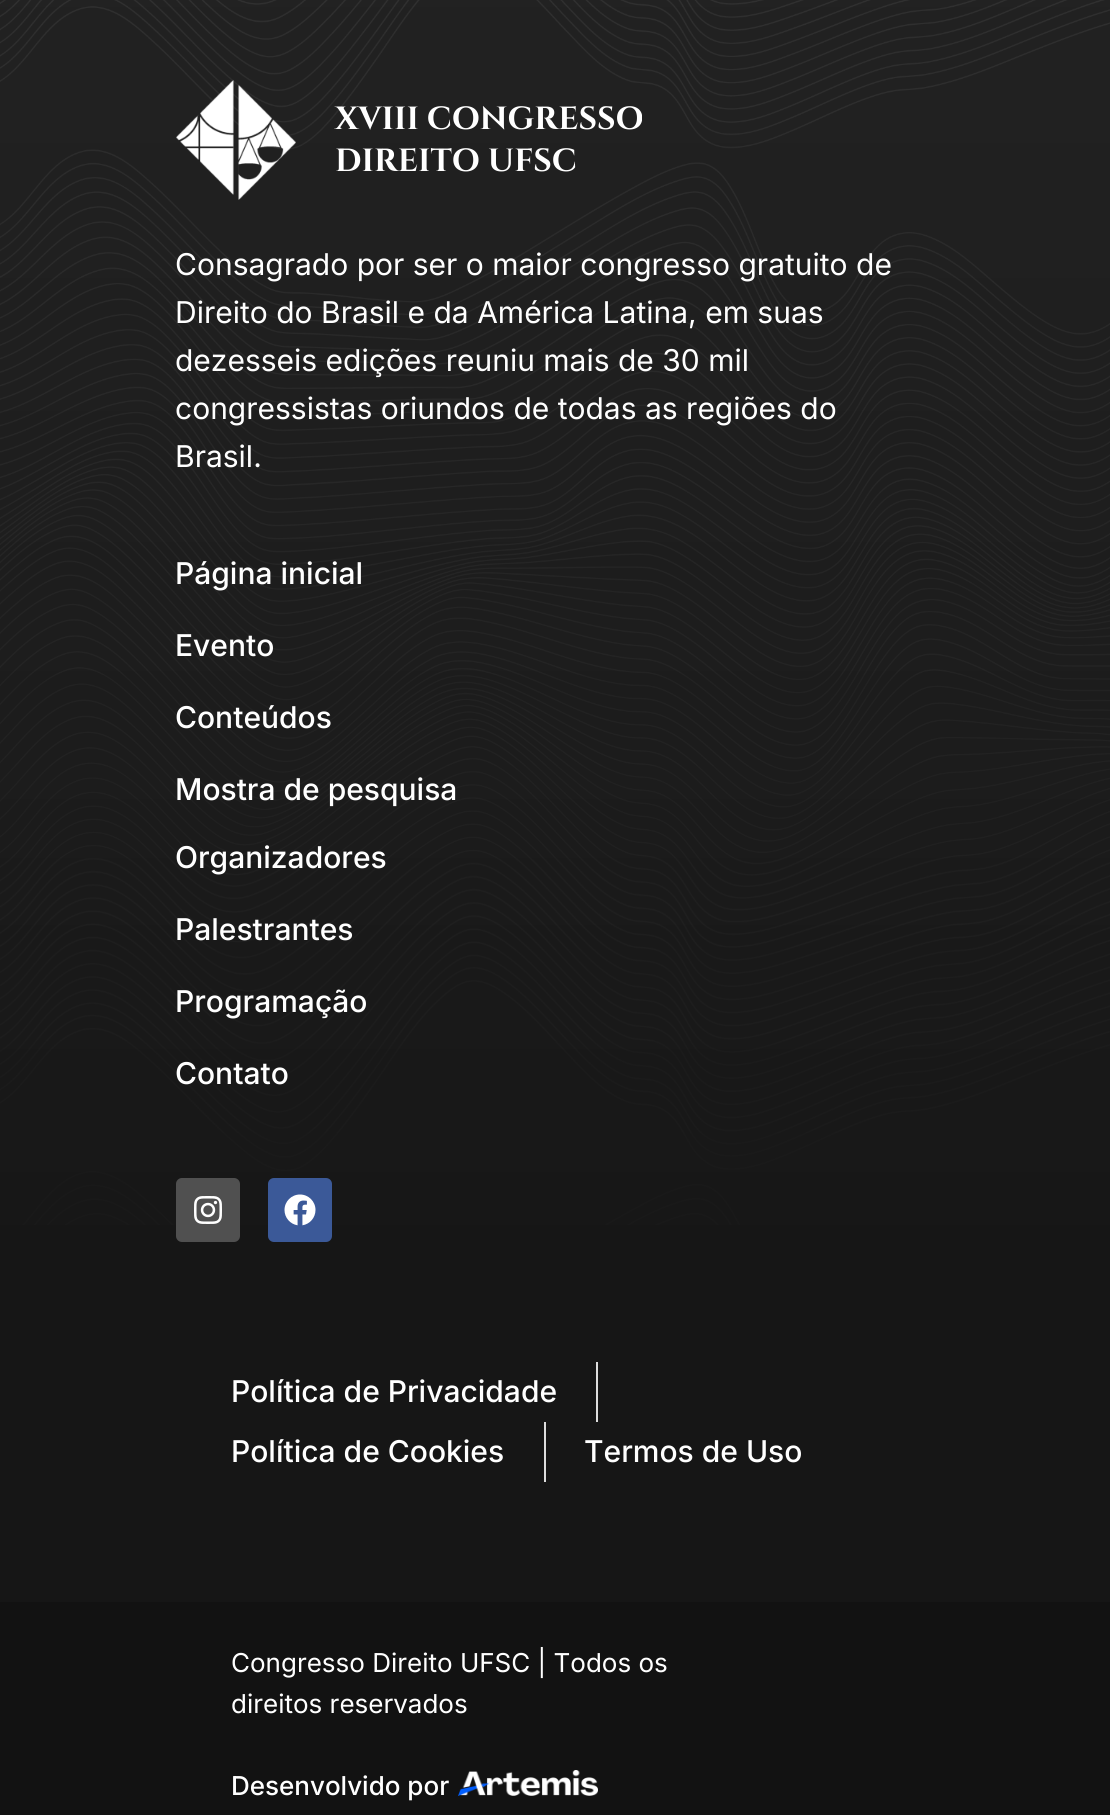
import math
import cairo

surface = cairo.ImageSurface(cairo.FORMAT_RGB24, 1110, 1815)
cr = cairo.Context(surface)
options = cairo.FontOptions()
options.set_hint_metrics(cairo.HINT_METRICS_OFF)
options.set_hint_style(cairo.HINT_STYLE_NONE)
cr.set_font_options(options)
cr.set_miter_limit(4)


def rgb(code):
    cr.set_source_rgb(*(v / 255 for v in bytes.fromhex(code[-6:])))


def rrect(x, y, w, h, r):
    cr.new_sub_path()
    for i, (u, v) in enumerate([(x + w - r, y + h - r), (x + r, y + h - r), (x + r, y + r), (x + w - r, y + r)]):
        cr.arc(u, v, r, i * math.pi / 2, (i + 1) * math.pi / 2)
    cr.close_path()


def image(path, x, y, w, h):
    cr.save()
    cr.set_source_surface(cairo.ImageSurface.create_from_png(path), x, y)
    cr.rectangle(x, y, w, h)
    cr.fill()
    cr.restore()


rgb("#161616")
cr.paint()
image("img/1.png", 0, 0, 1110, 1225)
gradient = cairo.LinearGradient(555, -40, 555, 1362)
gradient.add_color_stop_rgba(0, 0.137, 0.137, 0.137, 0.94)
gradient.add_color_stop_rgba(1, 0.086, 0.086, 0.086, 1)
cr.set_source(gradient)
cr.rectangle(0, 0, 1110, 1225)
cr.fill()
image("img/2.png", 176, 80, 120, 120)
rgb("#505050")
rrect(176, 1178, 64, 64, 6)
cr.fill()
image("img/3.png", 194, 1196, 28, 28)
rgb("#3b5998")
rrect(268, 1178, 64, 64, 6)
cr.fill()
image("img/4.png", 284, 1194, 32, 32)
for x, y, w, h, color in [
    (596, 1362, 2, 60, "#dddddd"),
    (544, 1422, 2, 60, "#dddddd"),
    (0, 1602, 1110, 213, "#121212"),
]:
    rgb(color)
    cr.rectangle(x, y, w, h)
    cr.fill()
image("img/5.png", 458, 1770, 140, 26)
cr.select_font_face("Cinzel", cairo.FONT_SLANT_NORMAL, cairo.FONT_WEIGHT_BOLD)
cr.set_font_size(32)
rgb("#ffffff")
cr.move_to(335, 129)
cr.show_text("XVIII CONGRESSO")
cr.move_to(335, 171)
cr.show_text("DIREITO UFSC")
cr.select_font_face("Inter")
cr.set_font_size(30)
for x, y, s in [
    (175, 275, "Consagrado por ser o maior congresso gratuito de"),
    (175, 323, "Direito do Brasil e da América Latina, em suas"),
    (175, 371, "dezesseis edições reuniu mais de 30 mil"),
    (175, 419, "congressistas oriundos de todas as regiões do"),
    (175, 467, "Brasil."),
]:
    cr.move_to(x, y)
    cr.show_text(s)
cr.select_font_face("Inter Medium")
for x, y, s in [
    (175, 584, "Página inicial"),
    (175, 656, "Evento"),
    (175, 728, "Conteúdos"),
    (175, 800, "Mostra de pesquisa"),
    (175, 868, "Organizadores"),
    (175, 940, "Palestrantes"),
    (175, 1012, "Programação"),
    (175, 1084, "Contato"),
    (231, 1402, "Política de Privacidade"),
    (231, 1462, "Política de Cookies"),
    (584, 1462, "Termos de Uso"),
]:
    cr.move_to(x, y)
    cr.show_text(s)
cr.select_font_face("Inter")
cr.set_font_size(26)
cr.move_to(231, 1672)
cr.show_text("Congresso Direito UFSC | Todos os")
cr.move_to(231, 1713)
cr.show_text("direitos reservados")
cr.select_font_face("Inter Medium")
cr.move_to(231, 1795)
cr.show_text("Desenvolvido por")
surface.write_to_png("page.png")
